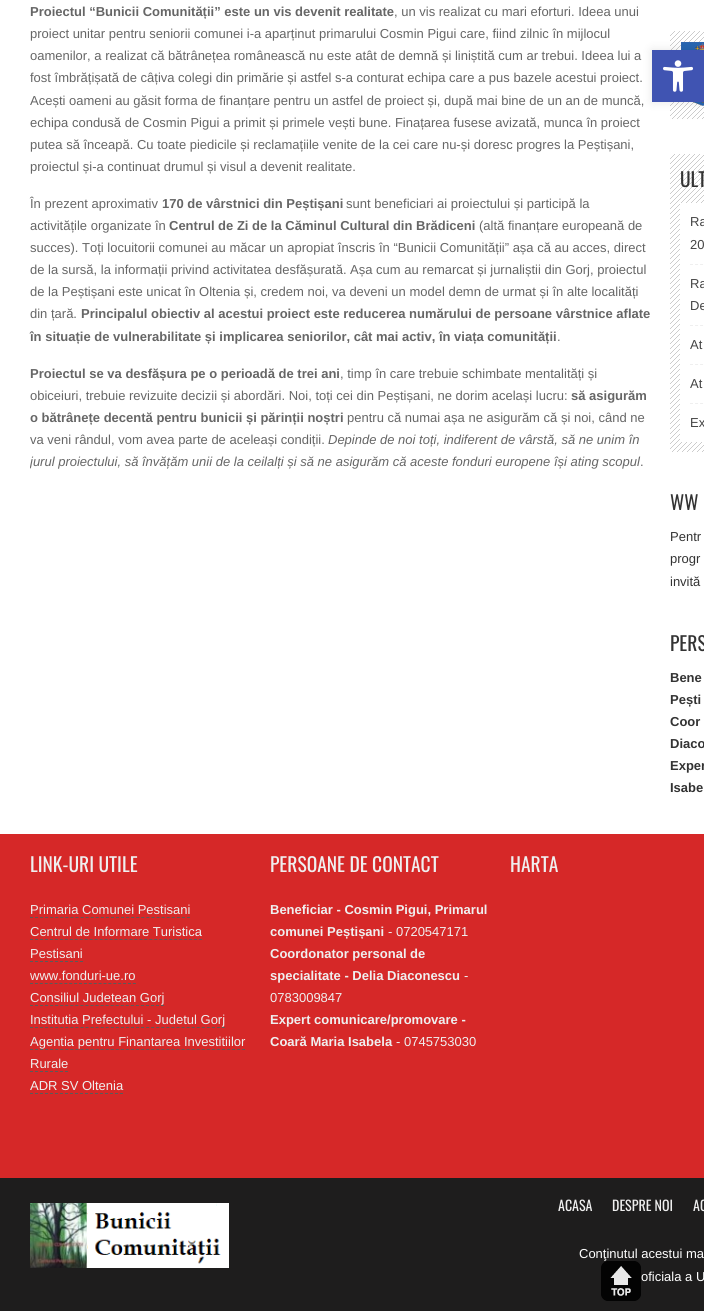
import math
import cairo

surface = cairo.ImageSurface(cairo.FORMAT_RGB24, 704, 1311)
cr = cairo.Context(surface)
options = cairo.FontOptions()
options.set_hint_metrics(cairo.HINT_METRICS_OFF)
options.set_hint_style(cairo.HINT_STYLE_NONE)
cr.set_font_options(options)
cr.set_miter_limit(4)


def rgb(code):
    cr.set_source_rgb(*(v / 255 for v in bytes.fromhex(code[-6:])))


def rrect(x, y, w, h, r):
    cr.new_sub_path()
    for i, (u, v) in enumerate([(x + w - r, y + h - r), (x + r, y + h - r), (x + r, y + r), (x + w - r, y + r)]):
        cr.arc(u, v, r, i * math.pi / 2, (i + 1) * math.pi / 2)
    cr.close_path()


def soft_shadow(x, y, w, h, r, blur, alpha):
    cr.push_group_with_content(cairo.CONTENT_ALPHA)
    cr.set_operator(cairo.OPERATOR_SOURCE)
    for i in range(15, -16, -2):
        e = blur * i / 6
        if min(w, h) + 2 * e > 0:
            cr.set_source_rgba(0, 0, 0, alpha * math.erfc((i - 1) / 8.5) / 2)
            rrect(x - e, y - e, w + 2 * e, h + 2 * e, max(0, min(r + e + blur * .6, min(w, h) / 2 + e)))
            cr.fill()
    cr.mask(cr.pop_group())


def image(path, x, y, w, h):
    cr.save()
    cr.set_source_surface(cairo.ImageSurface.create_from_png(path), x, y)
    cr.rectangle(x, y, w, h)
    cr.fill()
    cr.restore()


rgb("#ffffff")
cr.paint()
image("img/1.png", 670, 31, 34, 88)
image("img/2.png", 681, 42, 23, 64)
image("img/3.png", 670, 154, 34, 298)
rgb("#ffffff")
cr.rectangle(680, 203, 24, 239)
cr.fill()
cr.new_path()
cr.move_to(690, 264.5)
cr.line_to(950, 264.5)
cr.move_to(690, 325.5)
cr.line_to(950, 325.5)
rgb("#efefef")
cr.set_line_width(1)
cr.set_dash([3, 2.04])
cr.stroke()
cr.new_path()
cr.move_to(690, 364.5)
cr.line_to(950, 364.5)
cr.move_to(690, 403.5)
cr.line_to(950, 403.5)
cr.stroke()
rgb("#d62828")
cr.rectangle(0, 834, 704, 344)
cr.fill()
cr.new_path()
cr.move_to(30, 917.5)
cr.line_to(190, 917.5)
rgb("#5b5a59")
cr.set_dash([3, 2.06])
cr.stroke()
cr.new_path()
cr.move_to(30, 939.5)
cr.line_to(202, 939.5)
cr.set_dash([3, 1.97])
cr.stroke()
cr.new_path()
cr.move_to(30, 961.5)
cr.line_to(83, 961.5)
cr.set_dash([3, 2])
cr.stroke()
cr.new_path()
cr.move_to(30, 983.5)
cr.line_to(136, 983.5)
cr.set_dash([3, 1.9])
cr.stroke()
cr.new_path()
cr.move_to(30, 1005.5)
cr.line_to(164, 1005.5)
cr.set_dash([3, 2.04])
cr.stroke()
cr.new_path()
cr.move_to(30, 1027.5)
cr.line_to(225, 1027.5)
cr.set_dash([3, 2.05])
cr.stroke()
cr.new_path()
cr.move_to(30, 1049.5)
cr.line_to(245, 1049.5)
cr.stroke()
cr.new_path()
cr.move_to(30, 1071.5)
cr.line_to(68, 1071.5)
cr.set_dash([3, 2])
cr.stroke()
cr.new_path()
cr.move_to(30, 1093.5)
cr.line_to(123, 1093.5)
cr.stroke()
rgb("#1e1d1d")
cr.rectangle(0, 1178, 704, 133)
cr.fill()
image("img/4.png", 30, 1203, 199, 65)
rgb("#000000")
soft_shadow(652, 50, 52, 52, 0, 5, 0.1)
rgb("#4054b2")
cr.rectangle(652, 50, 52, 52)
cr.fill()
image("img/5.png", 663, 60, 30, 32)
image("img/6.png", 601, 1261, 40, 40)
cr.select_font_face("Liberation Sans", cairo.FONT_SLANT_NORMAL, cairo.FONT_WEIGHT_BOLD)
cr.set_font_size(13)
rgb("#666666")
cr.move_to(30, 16)
cr.show_text("Proiectul “Bunicii Comunității” este un vis devenit realitate")
cr.select_font_face("Liberation Sans")
for x, y, s in [
    (394, 16, ", un vis realizat cu mari eforturi. Ideea unui"),
    (30, 38, "proiect unitar pentru seniorii comunei i-a aparținut primarului Cosmin Pigui care, fiind zilnic în mijlocul"),
    (30, 60, "oamenilor, a realizat că bătrânețea românească nu este atât de demnă și liniștită cum ar trebui. Ideea lui a"),
    (30, 82, "fost îmbrățișată de câțiva colegi din primărie și astfel s-a conturat echipa care a pus bazele acestui proiect."),
    (30, 105, "Acești oameni au găsit forma de finanțare pentru un astfel de proiect și, după mai bine de un an de muncă,"),
    (30, 127, "echipa condusă de Cosmin Pigui a primit și primele vești bune. Finațarea fusese avizată, munca în proiect"),
    (30, 149, "putea să înceapă. Cu toate piedicile și reclamațiile venite de la cei care nu-și doresc progres la Peștișani,"),
    (30, 171, "proiectul și-a continuat drumul și visul a devenit realitate."),
    (30, 208, "În prezent aproximativ"),
]:
    cr.move_to(x, y)
    cr.show_text(s)
cr.select_font_face("Liberation Sans", cairo.FONT_SLANT_NORMAL, cairo.FONT_WEIGHT_BOLD)
cr.move_to(162, 208)
cr.show_text("170 de vârstnici din Peștișani")
cr.select_font_face("Liberation Sans")
cr.move_to(346, 208)
cr.show_text("sunt beneficiari ai proiectului și participă la")
cr.move_to(30, 230)
cr.show_text("activitățile organizate în")
cr.select_font_face("Liberation Sans", cairo.FONT_SLANT_NORMAL, cairo.FONT_WEIGHT_BOLD)
cr.move_to(169, 230)
cr.show_text("Centrul de Zi de la Căminul Cultural din Brădiceni")
cr.select_font_face("Liberation Sans")
for x, y, s in [
    (479, 230, "(altă finanțare europeană de"),
    (30, 252, "succes). Toți locuitorii comunei au măcar un apropiat înscris în “Bunicii Comunității” așa că au acces, direct"),
    (30, 274, "de la sursă, la informații privind activitatea desfășurată. Așa cum au remarcat și jurnaliștii din Gorj, proiectul"),
    (30, 296, "de la Peștișani este unicat în Oltenia și, credem noi, va deveni un model demn de urmat și în alte localități"),
    (30, 318, "din țară."),
]:
    cr.move_to(x, y)
    cr.show_text(s)
cr.select_font_face("Liberation Sans", cairo.FONT_SLANT_NORMAL, cairo.FONT_WEIGHT_BOLD)
cr.move_to(81, 318)
cr.show_text("Principalul obiectiv al acestui proiect este reducerea numărului de persoane vârstnice aflate")
cr.move_to(30, 341)
cr.show_text("în situație de vulnerabilitate și implicarea seniorilor, cât mai activ, în viața comunității")
cr.select_font_face("Liberation Sans")
cr.move_to(557, 341)
cr.show_text(".")
cr.select_font_face("Liberation Sans", cairo.FONT_SLANT_NORMAL, cairo.FONT_WEIGHT_BOLD)
cr.move_to(30, 378)
cr.show_text("Proiectul se va desfășura pe o perioadă de trei ani")
cr.select_font_face("Liberation Sans")
cr.move_to(340, 378)
cr.show_text(", timp în care trebuie schimbate mentalități și")
cr.move_to(30, 400)
cr.show_text("obiceiuri, trebuie revizuite decizii și abordări. Noi, toți cei din Peștișani, ne dorim același lucru:")
cr.select_font_face("Liberation Sans", cairo.FONT_SLANT_NORMAL, cairo.FONT_WEIGHT_BOLD)
cr.move_to(571, 400)
cr.show_text("să asigurăm")
cr.move_to(30, 422)
cr.show_text("o bătrânețe decentă pentru bunicii și părinții noștri")
cr.select_font_face("Liberation Sans")
cr.move_to(347, 422)
cr.show_text("pentru că numai așa ne asigurăm că și noi, când ne")
cr.move_to(30, 444)
cr.show_text("va veni rândul, vom avea parte de aceleași condiții.")
cr.select_font_face("Liberation Sans", cairo.FONT_SLANT_ITALIC)
cr.move_to(328, 444)
cr.show_text("Depinde de noi toți, indiferent de vârstă, să ne unim în")
cr.save()
cr.rectangle(30, 0, 620, 483)
cr.clip()
cr.move_to(30, 466)
cr.show_text("jurul proiectului, să învățăm unii de la ceilalți și să ne asigurăm că aceste fonduri europene își ating scopul")
cr.restore()
cr.select_font_face("Liberation Sans")
cr.move_to(640, 466)
cr.show_text(".")
cr.select_font_face("Oswald")
cr.set_font_size(19.5)
rgb("#333333")
cr.move_to(680, 187)
cr.show_text("ULT")
cr.select_font_face("Liberation Sans")
cr.set_font_size(13)
rgb("#444444")
for x, y, s in [
    (690, 226, "Ra"),
    (690, 249, "20"),
    (690, 288, "Ra"),
    (690, 310, "De"),
    (690, 349, "At"),
    (690, 388, "At"),
    (690, 427, "Ex"),
]:
    cr.move_to(x, y)
    cr.show_text(s)
cr.select_font_face("Oswald")
cr.set_font_size(19.5)
rgb("#333333")
cr.move_to(670, 510)
cr.show_text("WW")
cr.select_font_face("Liberation Sans")
cr.set_font_size(13)
for x, y, s in [
    (670, 541, "Pentr"),
    (670, 563, "progr"),
    (670, 586, "invită"),
]:
    cr.move_to(x, y)
    cr.show_text(s)
cr.select_font_face("Oswald")
cr.set_font_size(19.5)
cr.move_to(670, 651)
cr.show_text("PERS")
cr.select_font_face("Liberation Sans", cairo.FONT_SLANT_NORMAL, cairo.FONT_WEIGHT_BOLD)
cr.set_font_size(13)
for x, y, s in [
    (670, 682, "Bene"),
    (670, 704, "Pești"),
    (670, 726, "Coor"),
    (670, 748, "Diaco"),
    (670, 770, "Exper"),
    (670, 792, "Isabe"),
]:
    cr.move_to(x, y)
    cr.show_text(s)
cr.select_font_face("Oswald")
cr.set_font_size(19.5)
rgb("#efefef")
cr.move_to(30, 872)
cr.show_text("LINK-URI UTILE")
cr.select_font_face("Liberation Sans")
cr.set_font_size(13)
for x, y, s in [
    (30, 914, "Primaria Comunei Pestisani"),
    (30, 936, "Centrul de Informare Turistica"),
    (30, 958, "Pestisani"),
    (30, 980, "www.fonduri-ue.ro"),
    (30, 1002, "Consiliul Judetean Gorj"),
    (30, 1024, "Institutia Prefectului - Judetul Gorj"),
    (30, 1046, "Agentia pentru Finantarea Investitiilor"),
    (30, 1068, "Rurale"),
    (30, 1090, "ADR SV Oltenia"),
]:
    cr.move_to(x, y)
    cr.show_text(s)
cr.select_font_face("Oswald")
cr.set_font_size(19.5)
cr.move_to(270, 872)
cr.show_text("PERSOANE DE CONTACT")
cr.select_font_face("Liberation Sans", cairo.FONT_SLANT_NORMAL, cairo.FONT_WEIGHT_BOLD)
cr.set_font_size(13)
cr.move_to(270, 914)
cr.show_text("Beneficiar - Cosmin Pigui, Primarul")
cr.move_to(270, 936)
cr.show_text("comunei Peștișani")
cr.select_font_face("Liberation Sans")
cr.move_to(388, 936)
cr.show_text("- 0720547171")
cr.select_font_face("Liberation Sans", cairo.FONT_SLANT_NORMAL, cairo.FONT_WEIGHT_BOLD)
cr.move_to(270, 958)
cr.show_text("Coordonator personal de")
cr.move_to(270, 980)
cr.show_text("specialitate - Delia Diaconescu")
cr.select_font_face("Liberation Sans")
cr.move_to(464, 980)
cr.show_text("-")
cr.move_to(270, 1002)
cr.show_text("0783009847")
cr.select_font_face("Liberation Sans", cairo.FONT_SLANT_NORMAL, cairo.FONT_WEIGHT_BOLD)
cr.move_to(270, 1024)
cr.show_text("Expert comunicare/promovare -")
cr.move_to(270, 1046)
cr.show_text("Coară Maria Isabela")
cr.select_font_face("Liberation Sans")
cr.move_to(396, 1046)
cr.show_text("- 0745753030")
cr.select_font_face("Oswald")
cr.set_font_size(19.5)
cr.move_to(510, 872)
cr.show_text("HARTA")
cr.set_font_size(14)
for x, y, s in [
    (558, 1211, "ACASA"),
    (612, 1211, "DESPRE NOI"),
    (693, 1211, "AC"),
]:
    cr.move_to(x, y)
    cr.show_text(s)
cr.select_font_face("Liberation Sans")
cr.set_font_size(13)
rgb("#ffffff")
cr.move_to(579, 1258)
cr.show_text("Conţinutul acestui ma")
cr.move_to(641, 1281)
cr.show_text("oficiala a U")
surface.write_to_png("page.png")
